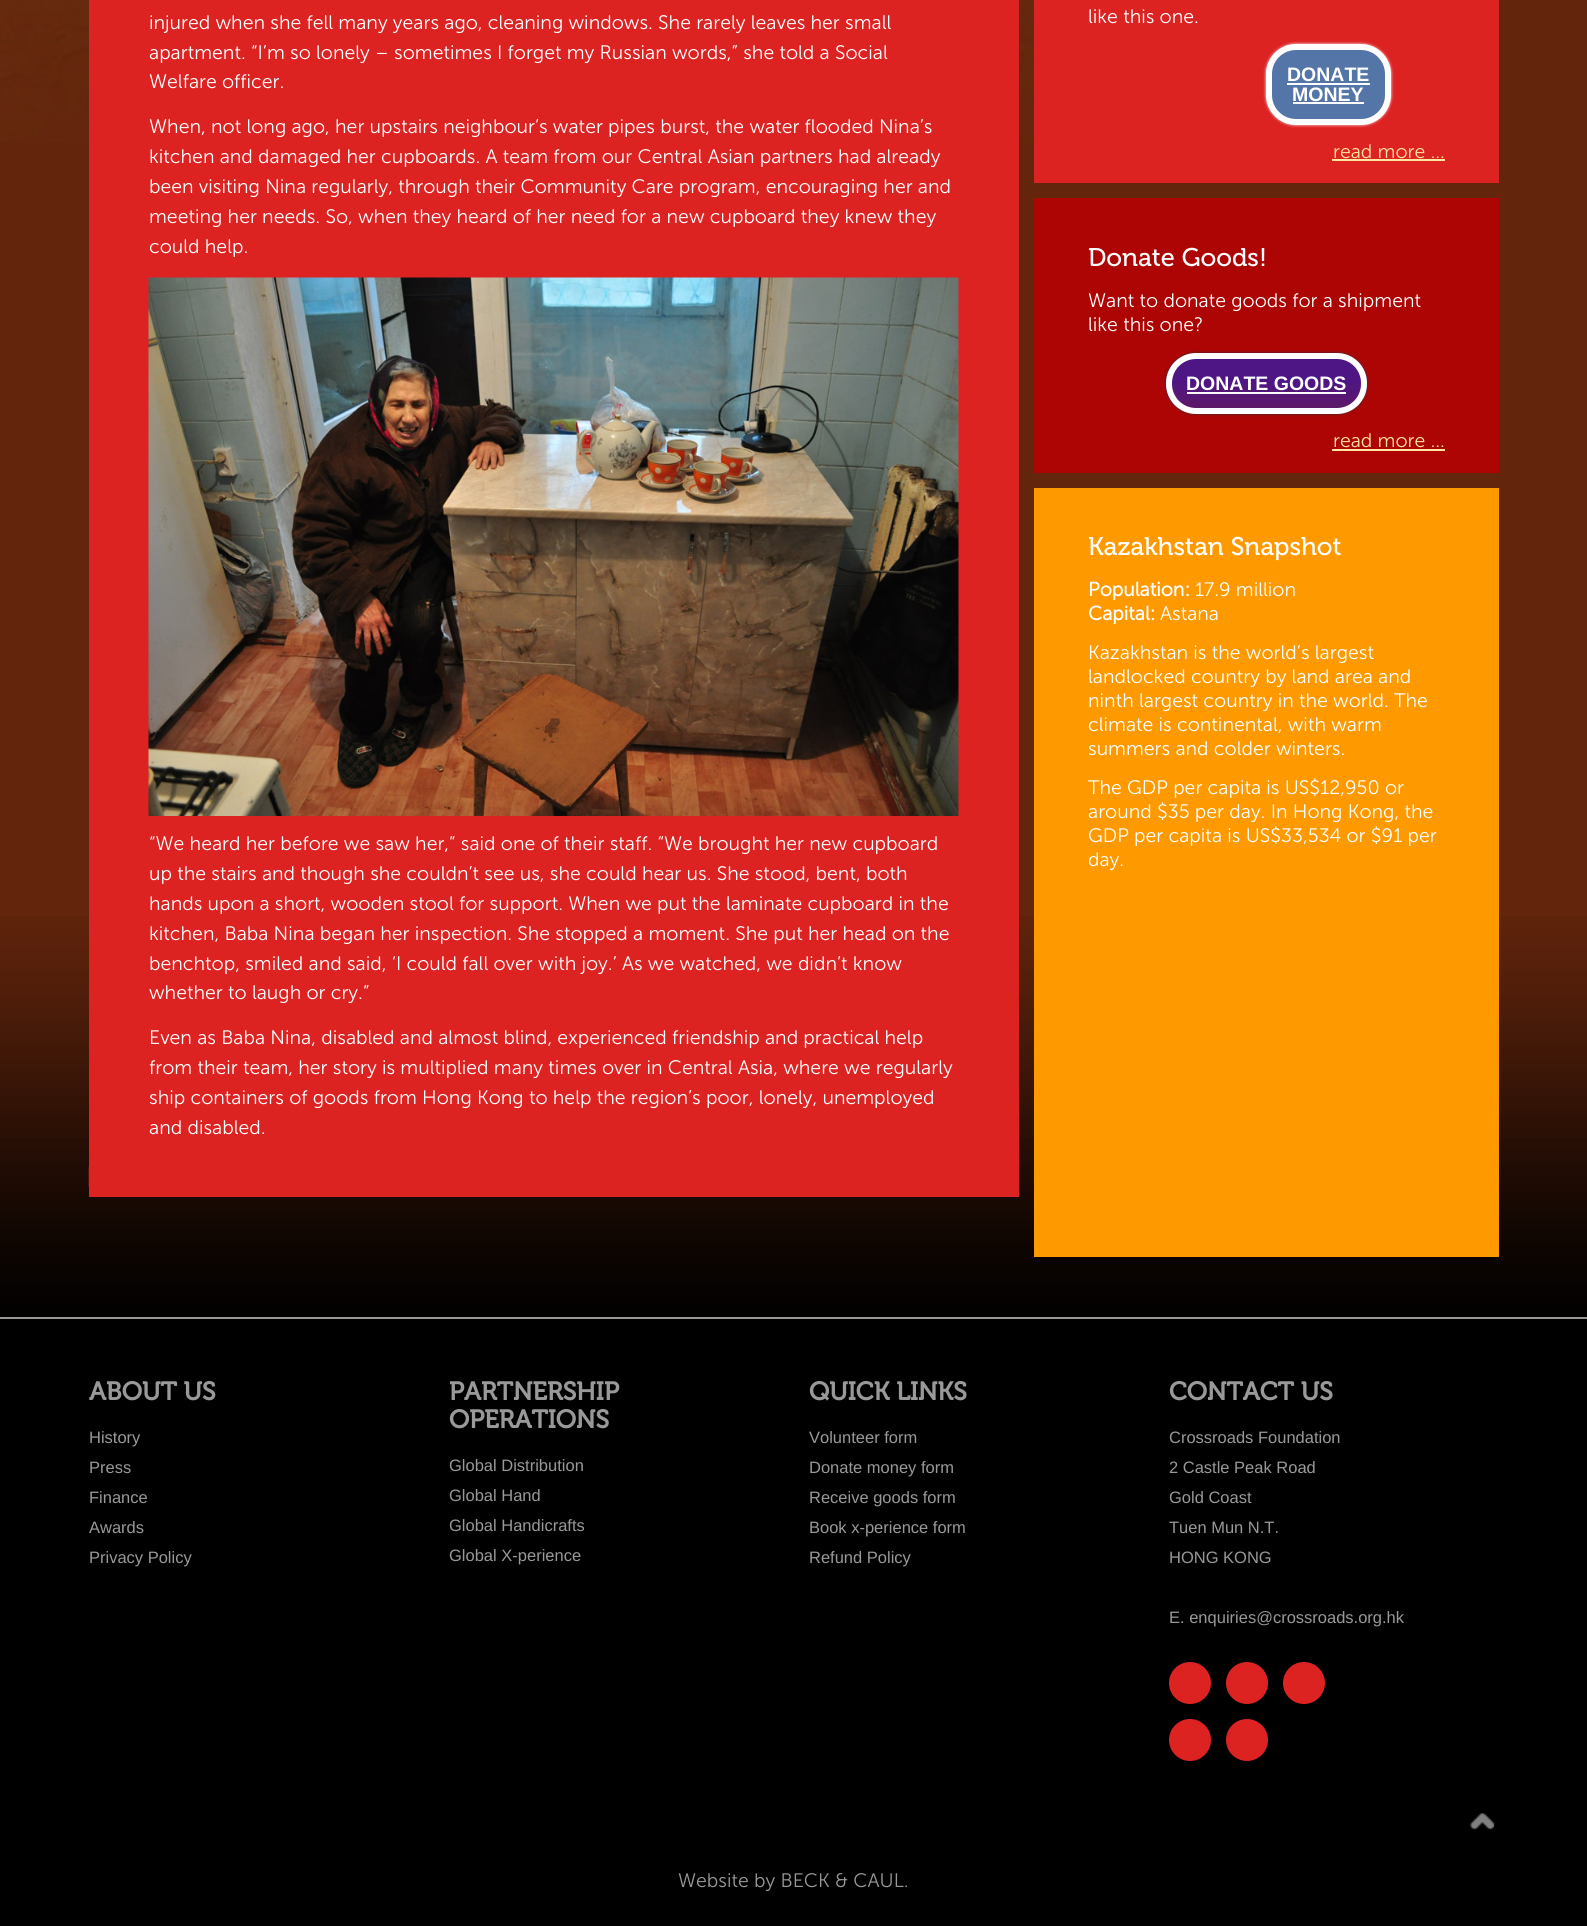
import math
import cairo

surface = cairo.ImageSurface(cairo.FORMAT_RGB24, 1587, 1926)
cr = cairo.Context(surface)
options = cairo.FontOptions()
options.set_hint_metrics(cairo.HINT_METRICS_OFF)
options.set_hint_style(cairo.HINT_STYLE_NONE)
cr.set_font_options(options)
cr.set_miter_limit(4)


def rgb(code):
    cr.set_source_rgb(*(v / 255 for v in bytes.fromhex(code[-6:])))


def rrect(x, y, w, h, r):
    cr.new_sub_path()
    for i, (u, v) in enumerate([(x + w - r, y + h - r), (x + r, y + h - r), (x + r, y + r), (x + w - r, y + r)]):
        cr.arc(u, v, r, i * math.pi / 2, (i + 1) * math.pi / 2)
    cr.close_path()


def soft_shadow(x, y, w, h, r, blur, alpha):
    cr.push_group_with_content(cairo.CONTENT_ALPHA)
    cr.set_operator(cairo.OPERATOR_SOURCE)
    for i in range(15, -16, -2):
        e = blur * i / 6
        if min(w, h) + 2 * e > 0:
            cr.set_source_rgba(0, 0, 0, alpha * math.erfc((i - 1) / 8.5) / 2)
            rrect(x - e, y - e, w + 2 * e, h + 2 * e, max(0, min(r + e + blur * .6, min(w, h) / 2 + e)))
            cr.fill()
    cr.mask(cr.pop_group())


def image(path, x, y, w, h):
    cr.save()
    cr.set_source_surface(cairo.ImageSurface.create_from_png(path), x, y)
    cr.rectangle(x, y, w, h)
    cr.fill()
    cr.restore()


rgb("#63250c")
cr.paint()
image("img/1.png", 0, 0, 1034, 142)
image("img/2.png", 0, 916, 1587, 401)
rgb("#dd2222")
cr.rectangle(89, 0, 930, 1197)
cr.fill()
image("img/3.png", 148, 277, 811, 539)
image("img/4.png", 88, 1167, 1, 20)
cr.rectangle(1034, 0, 465, 183)
cr.fill()
rgb("#ffffff")
soft_shadow(1266, 44, 125, 81, 30, 1.5, 1)
rgb("#5475a8")
rrect(1269, 47, 119, 75, 27)
cr.fill_preserve()
rgb("#ffffff")
cr.set_line_width(6)
cr.stroke()
for x, y, w, h, color in [
    (1287, 83, 83, 2, "#ffffff"),
    (1293, 102, 71, 2, "#ffffff"),
    (1332, 159, 113, 2, "#ffe59d"),
    (1034, 198, 465, 275, "#ad0404"),
]:
    rgb(color)
    cr.rectangle(x, y, w, h)
    cr.fill()
rgb("#333333")
soft_shadow(1166, 353, 201, 61, 30, 1.5, 1)
cr.save()
rrect(1166, 353, 201, 61, 30)
cr.clip()
gradient = cairo.LinearGradient(1266, 359, 1266, 408)
gradient.add_color_stop_rgba(0.45, 0.306, 0.086, 0.522, 1)
gradient.add_color_stop_rgba(1, 0.365, 0.094, 0.4, 1)
cr.set_source(gradient)
cr.rectangle(1166, 359, 201, 49)
cr.fill()
cr.restore()
rrect(1169, 356, 195, 55, 27)
rgb("#ffffff")
cr.stroke()
for x, y, w, h, color in [
    (1187, 392, 159, 2, "#ffffff"),
    (1332, 449, 113, 2, "#ffe59d"),
    (1034, 488, 465, 769, "#ff9900"),
    (0, 1319, 1587, 607, "#000000"),
    (0, 1317, 1587, 2, "#999998"),
]:
    rgb(color)
    cr.rectangle(x, y, w, h)
    cr.fill()
rgb("#dd2222")
cr.arc(1190, 1683, 21, 0, 2 * math.pi)
cr.fill()
cr.arc(1247, 1683, 21, 0, 2 * math.pi)
cr.fill()
cr.arc(1304, 1683, 21, 0, 2 * math.pi)
cr.fill()
cr.arc(1190, 1740, 21, 0, 2 * math.pi)
cr.fill()
cr.arc(1247, 1740, 21, 0, 2 * math.pi)
cr.fill()
image("img/5.png", 1469, 1813, 26, 18)
cr.select_font_face("Museo Sans Light")
cr.set_font_size(19.5)
rgb("#ffffff")
for x, y, s in [
    (149, 29, "injured when she fell many years ago, cleaning windows. She rarely leaves her small"),
    (149, 59, "apartment. “I’m so lonely – sometimes I forget my Russian words,” she told a Social"),
    (149, 88, "Welfare officer."),
    (149, 133, "When, not long ago, her upstairs neighbour’s water pipes burst, the water flooded Nina’s"),
    (149, 163, "kitchen and damaged her cupboards. A team from our Central Asian partners had already"),
    (149, 193, "been visiting Nina regularly, through their Community Care program, encouraging her and"),
    (149, 223, "meeting her needs. So, when they heard of her need for a new cupboard they knew they"),
    (149, 253, "could help."),
    (149, 850, "“We heard her before we saw her,” said one of their staff. “We brought her new cupboard"),
    (149, 880, "up the stairs and though she couldn’t see us, she could hear us. She stood, bent, both"),
    (149, 910, "hands upon a short, wooden stool for support. When we put the laminate cupboard in the"),
    (149, 940, "kitchen, Baba Nina began her inspection. She stopped a moment. She put her head on the"),
    (149, 970, "benchtop, smiled and said, ‘I could fall over with joy.’ As we watched, we didn’t know"),
    (149, 999, "whether to laugh or cry.”"),
    (149, 1044, "Even as Baba Nina, disabled and almost blind, experienced friendship and practical help"),
    (149, 1074, "from their team, her story is multiplied many times over in Central Asia, where we regularly"),
    (149, 1104, "ship containers of goods from Hong Kong to help the region’s poor, lonely, unemployed"),
    (149, 1134, "and disabled."),
    (1088, 23, "like this one."),
]:
    cr.move_to(x, y)
    cr.show_text(s)
cr.select_font_face("Liberation Sans", cairo.FONT_SLANT_NORMAL, cairo.FONT_WEIGHT_BOLD)
cr.move_to(1287, 81)
cr.show_text("DONATE")
cr.move_to(1292, 101)
cr.show_text("MONEY")
cr.select_font_face("Museo Sans Light")
rgb("#ffe59d")
cr.move_to(1333, 158)
cr.show_text("read more ...")
cr.select_font_face("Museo")
cr.set_font_size(25.5)
rgb("#ffffff")
cr.move_to(1088, 266)
cr.show_text("Donate Goods!")
cr.select_font_face("Museo Sans Light")
cr.set_font_size(19.5)
cr.move_to(1088, 307)
cr.show_text("Want to donate goods for a shipment")
cr.move_to(1088, 331)
cr.show_text("like this one?")
cr.select_font_face("Liberation Sans", cairo.FONT_SLANT_NORMAL, cairo.FONT_WEIGHT_BOLD)
cr.move_to(1186, 390)
cr.show_text("DONATE GOODS")
cr.select_font_face("Museo Sans Light")
rgb("#ffe59d")
cr.move_to(1333, 447)
cr.show_text("read more ...")
cr.select_font_face("Museo")
cr.set_font_size(25.5)
rgb("#ffffff")
cr.move_to(1088, 555)
cr.show_text("Kazakhstan Snapshot")
cr.select_font_face("Museo Sans", cairo.FONT_SLANT_NORMAL, cairo.FONT_WEIGHT_BOLD)
cr.set_font_size(19.5)
cr.move_to(1088, 596)
cr.show_text("Population:")
cr.select_font_face("Museo Sans Light")
cr.move_to(1195, 596)
cr.show_text("17.9 million")
cr.select_font_face("Museo Sans", cairo.FONT_SLANT_NORMAL, cairo.FONT_WEIGHT_BOLD)
cr.move_to(1088, 620)
cr.show_text("Capital:")
cr.select_font_face("Museo Sans Light")
for x, y, s in [
    (1160, 620, "Astana"),
    (1088, 659, "Kazakhstan is the world’s largest"),
    (1088, 683, "landlocked country by land area and"),
    (1088, 707, "ninth largest country in the world. The"),
    (1088, 731, "climate is continental, with warm"),
    (1088, 755, "summers and colder winters."),
    (1088, 794, "The GDP per capita is US$12,950 or"),
    (1088, 818, "around $35 per day. In Hong Kong, the"),
    (1088, 842, "GDP per capita is US$33,534 or $91 per"),
    (1088, 866, "day."),
]:
    cr.move_to(x, y)
    cr.show_text(s)
cr.select_font_face("Museo", cairo.FONT_SLANT_NORMAL, cairo.FONT_WEIGHT_BOLD)
cr.set_font_size(25.5)
rgb("#999999")
cr.move_to(89, 1400)
cr.show_text("ABOUT US")
cr.select_font_face("Liberation Sans")
cr.set_font_size(16.5)
for x, y, s in [
    (89, 1443, "History"),
    (89, 1473, "Press"),
    (89, 1503, "Finance"),
    (89, 1533, "Awards"),
    (89, 1563, "Privacy Policy"),
]:
    cr.move_to(x, y)
    cr.show_text(s)
cr.select_font_face("Museo", cairo.FONT_SLANT_NORMAL, cairo.FONT_WEIGHT_BOLD)
cr.set_font_size(25.5)
cr.move_to(449, 1400)
cr.show_text("PARTNERSHIP")
cr.move_to(449, 1428)
cr.show_text("OPERATIONS")
cr.select_font_face("Liberation Sans")
cr.set_font_size(16.5)
for x, y, s in [
    (449, 1471, "Global Distribution"),
    (449, 1501, "Global Hand"),
    (449, 1531, "Global Handicrafts"),
    (449, 1561, "Global X-perience"),
]:
    cr.move_to(x, y)
    cr.show_text(s)
cr.select_font_face("Museo", cairo.FONT_SLANT_NORMAL, cairo.FONT_WEIGHT_BOLD)
cr.set_font_size(25.5)
cr.move_to(809, 1400)
cr.show_text("QUICK LINKS")
cr.select_font_face("Liberation Sans")
cr.set_font_size(16.5)
for x, y, s in [
    (809, 1443, "Volunteer form"),
    (809, 1473, "Donate money form"),
    (809, 1503, "Receive goods form"),
    (809, 1533, "Book x-perience form"),
    (809, 1563, "Refund Policy"),
]:
    cr.move_to(x, y)
    cr.show_text(s)
cr.select_font_face("Museo", cairo.FONT_SLANT_NORMAL, cairo.FONT_WEIGHT_BOLD)
cr.set_font_size(25.5)
cr.move_to(1169, 1400)
cr.show_text("CONTACT US")
cr.select_font_face("Liberation Sans")
cr.set_font_size(16.5)
for x, y, s in [
    (1169, 1443, "Crossroads Foundation"),
    (1169, 1473, "2 Castle Peak Road"),
    (1169, 1503, "Gold Coast"),
    (1169, 1533, "Tuen Mun N.T."),
    (1169, 1563, "HONG KONG"),
    (1169, 1623, "E. enquiries@crossroads.org.hk"),
]:
    cr.move_to(x, y)
    cr.show_text(s)
cr.select_font_face("Museo Sans Light")
cr.set_font_size(19.5)
cr.move_to(678, 1887)
cr.show_text("Website by BECK & CAUL.")
surface.write_to_png("page.png")
